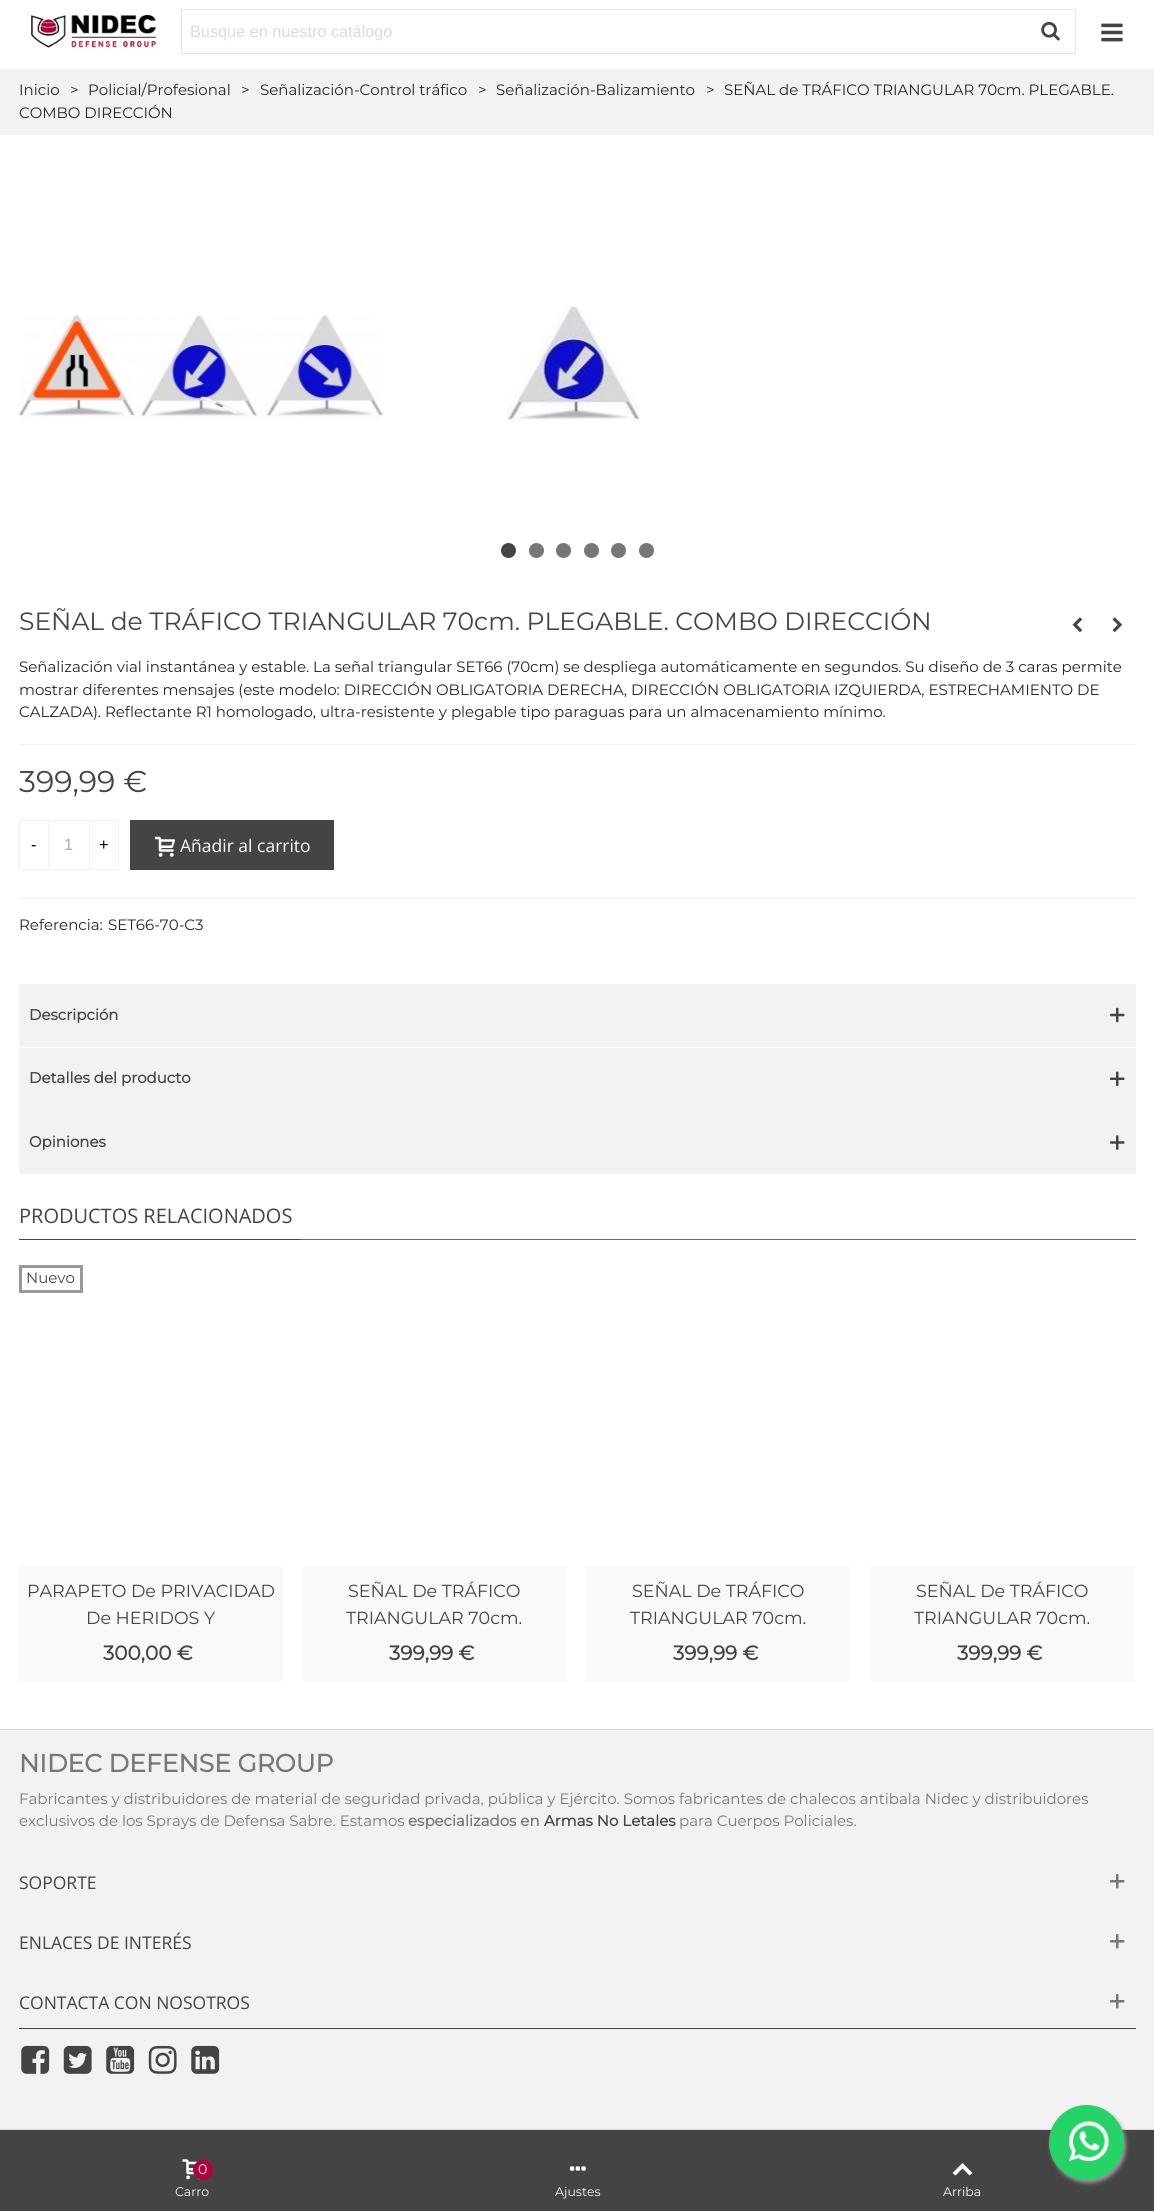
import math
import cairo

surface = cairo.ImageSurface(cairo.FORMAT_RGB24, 1154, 2211)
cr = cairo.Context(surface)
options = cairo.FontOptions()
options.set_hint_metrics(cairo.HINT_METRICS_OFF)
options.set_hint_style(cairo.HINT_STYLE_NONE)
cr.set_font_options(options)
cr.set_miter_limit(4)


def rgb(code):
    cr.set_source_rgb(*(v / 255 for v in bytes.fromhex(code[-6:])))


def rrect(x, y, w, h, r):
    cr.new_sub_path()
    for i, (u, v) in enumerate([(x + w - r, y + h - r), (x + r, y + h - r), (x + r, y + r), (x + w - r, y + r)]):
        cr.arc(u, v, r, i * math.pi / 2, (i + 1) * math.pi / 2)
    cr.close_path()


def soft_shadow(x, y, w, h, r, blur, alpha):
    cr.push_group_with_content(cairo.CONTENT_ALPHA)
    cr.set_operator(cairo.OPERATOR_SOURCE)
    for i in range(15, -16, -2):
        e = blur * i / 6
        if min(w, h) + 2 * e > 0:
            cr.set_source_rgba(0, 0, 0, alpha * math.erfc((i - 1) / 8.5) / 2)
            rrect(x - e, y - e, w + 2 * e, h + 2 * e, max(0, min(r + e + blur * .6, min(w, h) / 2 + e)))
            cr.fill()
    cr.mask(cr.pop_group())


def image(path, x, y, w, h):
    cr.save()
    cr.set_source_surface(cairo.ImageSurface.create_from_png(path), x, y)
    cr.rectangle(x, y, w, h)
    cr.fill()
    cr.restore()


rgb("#ffffff")
cr.paint()
image("img/1.png", 31, 15, 126, 33)
cr.rectangle(181.5, 9.5, 894, 44)
rgb("#e5e5e5")
cr.set_line_width(1)
cr.stroke()
image("img/2.png", 1041, 21, 19, 20)
image("img/3.png", 1101, 23, 22, 19)
rgb("#f2f2f2")
cr.rectangle(0, 69, 1154, 66)
cr.fill()
image("img/4.png", 19, 315, 364, 105)
image("img/5.png", 506, 305, 134, 117)
rgb("#444444")
cr.arc(508.5, 550.5, 7.5, 0, 2 * math.pi)
cr.fill()
rgb("#777777")
cr.arc(536.5, 550.5, 7.5, 0, 2 * math.pi)
cr.fill()
cr.arc(563.5, 550.5, 7.5, 0, 2 * math.pi)
cr.fill()
cr.arc(591.5, 550.5, 7.5, 0, 2 * math.pi)
cr.fill()
cr.arc(618.5, 550.5, 7.5, 0, 2 * math.pi)
cr.fill()
cr.arc(646.5, 550.5, 7.5, 0, 2 * math.pi)
cr.fill()
image("img/6.png", 1072, 617, 11, 16)
image("img/7.png", 1112, 617, 11, 16)
rgb("#f2f2f2")
cr.rectangle(19, 744, 1117, 1)
cr.fill()
cr.rectangle(19.5, 820.5, 29, 49)
cr.stroke()
cr.rectangle(48.5, 820.5, 41, 49)
cr.stroke()
cr.rectangle(89.5, 820.5, 29, 49)
cr.stroke()
rgb("#444444")
cr.rectangle(130, 820, 204, 50)
cr.fill()
image("img/8.png", 155, 836, 20, 21)
rgb("#f2f2f2")
cr.rectangle(19, 898, 1117, 1)
cr.fill()
cr.rectangle(19, 984, 1117, 63)
cr.fill()
image("img/9.png", 1110, 1007, 15, 16)
cr.rectangle(19, 1048, 1117, 126)
cr.fill()
image("img/10.png", 1110, 1071, 15, 15)
image("img/11.png", 1110, 1135, 15, 15)
rgb("#666666")
cr.rectangle(300, 1239, 836, 1)
cr.fill()
rgb("#444444")
cr.rectangle(19, 1239, 281, 1)
cr.fill()
cr.rectangle(20.5, 1266.5, 61, 25)
rgb("#999999")
cr.set_line_width(3)
cr.stroke()
for x, y, w, h, color in [
    (19, 1566, 264, 115, "#f9f9f9"),
    (303, 1566, 263, 115, "#f9f9f9"),
    (586, 1566, 264, 115, "#f9f9f9"),
    (870, 1566, 264, 115, "#f9f9f9"),
    (0, 1730, 1154, 399, "#f2f2f2"),
    (0, 1729, 1154, 1, "#dadada"),
]:
    rgb(color)
    cr.rectangle(x, y, w, h)
    cr.fill()
image("img/12.png", 1110, 1874, 15, 15)
image("img/12.png", 1110, 1934, 15, 15)
rgb("#444444")
cr.rectangle(19, 2028, 1117, 1)
cr.fill()
image("img/12.png", 1110, 1994, 15, 15)
image("img/13.png", 21, 2045, 29, 29)
image("img/14.png", 63, 2045, 29, 29)
image("img/15.png", 106, 2045, 29, 29)
image("img/16.png", 148, 2045, 29, 29)
image("img/17.png", 191, 2045, 29, 29)
cr.rectangle(0, 2130, 1154, 81)
cr.fill()
rgb("#dadada")
cr.rectangle(0, 2129, 1154, 1)
cr.fill()
image("img/18.png", 182, 2159, 19, 21)
rgb("#ae023c")
cr.arc(203, 2170, 10, 0, 2 * math.pi)
cr.fill()
image("img/19.png", 570, 2166, 16, 5)
rgb("#ffffff")
cr.new_path()
cr.move_to(952.5, 2173)
cr.line_to(962.5, 2163)
cr.line_to(972.5, 2173)
cr.line_to(969.5, 2175.5)
cr.line_to(962.5, 2168.5)
cr.line_to(955.5, 2175.5)
cr.close_path()
cr.fill()
rgb("#999999")
soft_shadow(1051, 2108, 75, 75, 37.5, 2, 1)
rgb("#25d366")
cr.arc(1086.5, 2142.5, 37.5, 0, 2 * math.pi)
cr.fill()
image("img/20.png", 1069, 2121, 40, 41)
cr.select_font_face("Liberation Sans")
cr.set_font_size(16.25)
rgb("#dadada")
cr.move_to(190, 37)
cr.show_text("Busque en nuestro catálogo")
cr.select_font_face("Montserrat Thin")
cr.set_font_size(15)
rgb("#262525")
for x, y, s in [
    (19, 95, "Inicio"),
    (70, 95, ">"),
    (88, 95, "Policial/Profesional"),
    (241, 95, ">"),
    (260, 95, "Señalización-Control tráfico"),
    (478, 95, ">"),
    (496, 95, "Señalización-Balizamiento"),
    (706, 95, ">"),
    (724, 95, "SEÑAL de TRÁFICO TRIANGULAR 70cm. PLEGABLE."),
    (19, 118, "COMBO DIRECCIÓN"),
]:
    cr.move_to(x, y)
    cr.show_text(s)
cr.set_font_size(25)
rgb("#444444")
cr.move_to(19, 630)
cr.show_text("SEÑAL de TRÁFICO TRIANGULAR 70cm. PLEGABLE. COMBO DIRECCIÓN")
cr.set_font_size(15)
rgb("#262525")
for x, y, s in [
    (19, 672, "Señalización vial instantánea y estable. La señal triangular SET66 (70cm) se despliega automáticamente en segundos. Su diseño de 3 caras permite"),
    (19, 695, "mostrar diferentes mensajes (este modelo: DIRECCIÓN OBLIGATORIA DERECHA, DIRECCIÓN OBLIGATORIA IZQUIERDA, ESTRECHAMIENTO DE"),
    (19, 717, "CALZADA). Reflectante R1 homologado, ultra-resistente y plegable tipo paraguas para un almacenamiento mínimo."),
]:
    cr.move_to(x, y)
    cr.show_text(s)
cr.set_font_size(30)
rgb("#444444")
cr.move_to(19, 792)
cr.show_text("399,99 €")
cr.select_font_face("Liberation Sans")
cr.set_font_size(16.25)
rgb("#000000")
cr.move_to(31, 850)
cr.show_text("-")
rgb("#acaaa6")
cr.move_to(64, 850)
cr.show_text("1")
rgb("#000000")
cr.move_to(99, 850)
cr.show_text("+")
cr.select_font_face("Open Sans")
cr.set_font_size(17.5)
rgb("#ffffff")
cr.move_to(180, 852)
cr.show_text("Añadir al carrito")
cr.select_font_face("Montserrat Thin")
cr.set_font_size(15)
rgb("#262525")
cr.move_to(19, 930)
cr.show_text("Referencia:")
cr.move_to(108, 930)
cr.show_text("SET66-70-C3")
cr.select_font_face("Montserrat", cairo.FONT_SLANT_NORMAL, cairo.FONT_WEIGHT_BOLD)
rgb("#444444")
for x, y, s in [
    (29, 1020, "Descripción"),
    (29, 1083, "Detalles del producto"),
    (29, 1147, "Opiniones"),
]:
    cr.move_to(x, y)
    cr.show_text(s)
cr.select_font_face("Open Sans")
cr.set_font_size(20)
cr.move_to(19, 1223)
cr.show_text("PRODUCTOS RELACIONADOS")
cr.select_font_face("Montserrat Thin")
cr.set_font_size(15)
cr.move_to(26, 1283)
cr.show_text("Nuevo")
cr.set_font_size(17.5)
cr.move_to(27, 1597)
cr.show_text("PARAPETO De PRIVACIDAD")
cr.move_to(86, 1624)
cr.show_text("De HERIDOS Y")
cr.select_font_face("Montserrat", cairo.FONT_SLANT_NORMAL, cairo.FONT_WEIGHT_BOLD)
cr.set_font_size(20)
cr.move_to(103, 1660)
cr.show_text("300,00 €")
cr.select_font_face("Montserrat Thin")
cr.set_font_size(17.5)
cr.move_to(348, 1597)
cr.show_text("SEÑAL De TRÁFICO")
cr.move_to(346, 1624)
cr.show_text("TRIANGULAR 70cm.")
cr.select_font_face("Montserrat", cairo.FONT_SLANT_NORMAL, cairo.FONT_WEIGHT_BOLD)
cr.set_font_size(20)
cr.move_to(389, 1660)
cr.show_text("399,99 €")
cr.select_font_face("Montserrat Thin")
cr.set_font_size(17.5)
cr.move_to(632, 1597)
cr.show_text("SEÑAL De TRÁFICO")
cr.move_to(630, 1624)
cr.show_text("TRIANGULAR 70cm.")
cr.select_font_face("Montserrat", cairo.FONT_SLANT_NORMAL, cairo.FONT_WEIGHT_BOLD)
cr.set_font_size(20)
cr.move_to(673, 1660)
cr.show_text("399,99 €")
cr.select_font_face("Montserrat Thin")
cr.set_font_size(17.5)
cr.move_to(916, 1597)
cr.show_text("SEÑAL De TRÁFICO")
cr.move_to(914, 1624)
cr.show_text("TRIANGULAR 70cm.")
cr.select_font_face("Montserrat", cairo.FONT_SLANT_NORMAL, cairo.FONT_WEIGHT_BOLD)
cr.set_font_size(20)
cr.move_to(957, 1660)
cr.show_text("399,99 €")
cr.set_font_size(25)
rgb("#777777")
cr.move_to(19, 1772)
cr.show_text("NIDEC DEFENSE GROUP")
cr.select_font_face("Montserrat Thin")
cr.set_font_size(15)
cr.move_to(19, 1804)
cr.show_text("Fabricantes y distribuidores de material de seguridad privada, pública y Ejército. Somos fabricantes de chalecos antibala Nidec y distribuidores")
cr.move_to(19, 1826)
cr.show_text("exclusivos de los Sprays de Defensa Sabre. Estamos")
cr.select_font_face("Montserrat", cairo.FONT_SLANT_NORMAL, cairo.FONT_WEIGHT_BOLD)
cr.move_to(408, 1826)
cr.show_text("especializados en")
rgb("#444444")
cr.move_to(544, 1826)
cr.show_text("Armas No Letales")
cr.select_font_face("Montserrat Thin")
rgb("#777777")
cr.move_to(679, 1826)
cr.show_text("para Cuerpos Policiales.")
cr.select_font_face("Open Sans")
cr.set_font_size(17.5)
rgb("#444444")
for x, y, s in [
    (19, 1889, "SOPORTE"),
    (19, 1949, "ENLACES DE INTERÉS"),
    (19, 2009, "CONTACTA CON NOSOTROS"),
]:
    cr.move_to(x, y)
    cr.show_text(s)
cr.select_font_face("Montserrat Thin")
cr.set_font_size(14)
rgb("#f2f2f2")
cr.move_to(198, 2174)
cr.show_text("0")
cr.set_font_size(12.5)
rgb("#ffffff")
for x, y, s in [
    (175, 2196, "Carro"),
    (555, 2196, "Ajustes"),
    (943, 2196, "Arriba"),
]:
    cr.move_to(x, y)
    cr.show_text(s)
surface.write_to_png("page.png")
